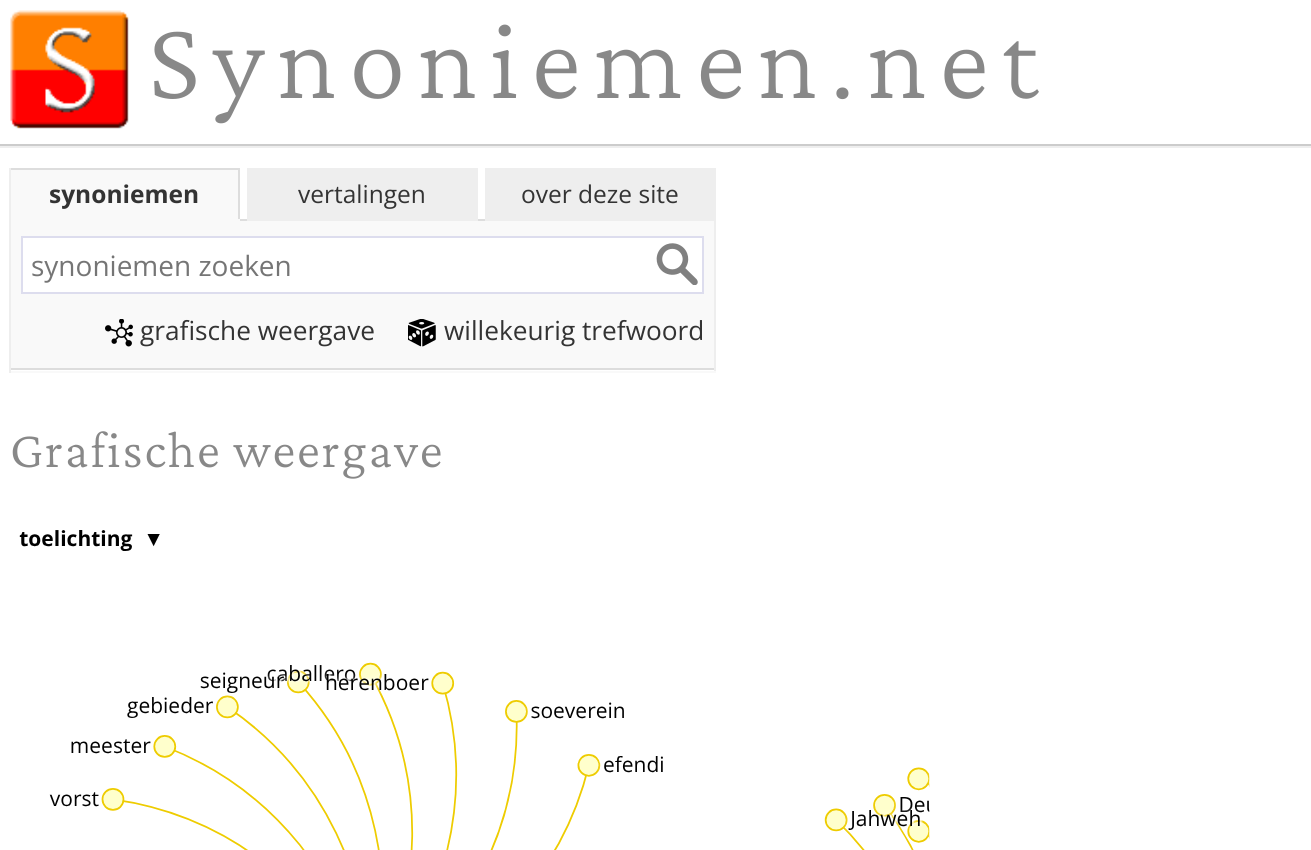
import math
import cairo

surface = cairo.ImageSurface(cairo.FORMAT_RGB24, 1311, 850)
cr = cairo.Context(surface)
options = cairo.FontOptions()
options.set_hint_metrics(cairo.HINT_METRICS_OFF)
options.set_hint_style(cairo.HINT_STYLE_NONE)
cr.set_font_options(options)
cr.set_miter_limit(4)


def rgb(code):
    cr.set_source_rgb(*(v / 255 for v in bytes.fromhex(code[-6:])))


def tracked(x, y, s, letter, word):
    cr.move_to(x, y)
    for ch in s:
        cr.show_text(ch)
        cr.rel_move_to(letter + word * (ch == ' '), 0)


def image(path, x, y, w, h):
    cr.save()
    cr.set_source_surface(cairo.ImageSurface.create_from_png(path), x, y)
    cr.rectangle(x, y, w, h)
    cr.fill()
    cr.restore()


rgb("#ffffff")
cr.paint()
image("img/1.png", 10, 10, 119, 119)
for x, y, w, h, color in [
    (0, 146, 1311, 2, "#eeeeee"),
    (0, 144, 1311, 2, "#cccccc"),
    (714, 168, 2, 205, "#eeeeee"),
    (9, 371, 707, 2, "#f9f9f9"),
    (9, 168, 2, 205, "#eeeeee"),
    (11, 170, 227, 49, "#f9f9f9"),
    (11, 168, 229, 2, "#dddddd"),
    (238, 168, 2, 53, "#dddddd"),
    (11, 219, 229, 2, "#f9f9f9"),
    (240, 219, 245, 2, "#dddddd"),
    (247, 168, 231, 53, "#eeeeee"),
    (487, 170, 227, 49, "#eeeeee"),
    (485, 168, 229, 2, "#eeeeee"),
    (485, 219, 229, 2, "#eeeeee"),
    (485, 168, 2, 53, "#eeeeee"),
    (11, 221, 703, 147, "#f9f9f9"),
    (11, 368, 703, 2, "#dddddd"),
    (23, 238, 679, 54, "#ffffff"),
]:
    rgb(color)
    cr.rectangle(x, y, w, h)
    cr.fill()
image("img/2.png", 656, 243, 42, 42)
for x, y, w, h, color in [
    (21, 236, 683, 2, "#ddddee"),
    (702, 236, 2, 58, "#ddddee"),
    (21, 292, 683, 2, "#ddddee"),
    (21, 236, 2, 58, "#ddddee"),
]:
    rgb(color)
    cr.rectangle(x, y, w, h)
    cr.fill()
image("img/3.png", 105, 319, 28, 28)
image("img/4.png", 408, 319, 28, 28)
image("img/5.png", 19, 530, 911, 320)
cr.select_font_face("Crimson Pro Light")
cr.set_font_size(113.75)
rgb("#888888")
tracked(148, 98, "Synoniemen.net", 12.5, 0)
cr.select_font_face("Open Sans", cairo.FONT_SLANT_NORMAL, cairo.FONT_WEIGHT_BOLD)
cr.set_font_size(24.5)
rgb("#333333")
cr.move_to(49, 203)
cr.show_text("synoniemen")
cr.select_font_face("Open Sans")
cr.move_to(298, 203)
cr.show_text("vertalingen")
cr.move_to(521, 203)
cr.show_text("over deze site")
cr.set_font_size(28)
rgb("#757575")
cr.move_to(31, 276)
cr.show_text("synoniemen zoeken")
cr.set_font_size(26.25)
rgb("#333333")
cr.move_to(140, 340)
cr.show_text("grafische weergave")
cr.move_to(444, 340)
cr.show_text("willekeurig trefwoord")
cr.select_font_face("Crimson Pro Light")
cr.set_font_size(52.5)
rgb("#888888")
tracked(10, 467, "Grafische weergave", 1.75, 0)
surface.write_to_png("page.png")
